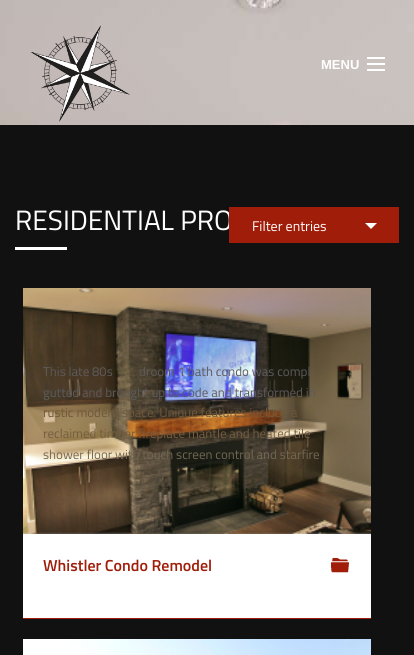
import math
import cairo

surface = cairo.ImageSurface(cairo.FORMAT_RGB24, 414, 655)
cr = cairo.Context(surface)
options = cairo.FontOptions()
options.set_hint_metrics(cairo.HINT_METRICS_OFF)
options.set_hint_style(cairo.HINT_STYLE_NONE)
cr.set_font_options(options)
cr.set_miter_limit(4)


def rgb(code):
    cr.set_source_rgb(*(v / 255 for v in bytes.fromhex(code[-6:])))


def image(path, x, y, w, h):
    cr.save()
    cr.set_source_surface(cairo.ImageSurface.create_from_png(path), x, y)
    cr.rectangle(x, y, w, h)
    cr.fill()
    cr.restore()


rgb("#ffffff")
cr.paint()
image("img/1.png", 0, 0, 414, 655)
image("img/2.png", 30, 25, 100, 97)
for x, y, w, h, color in [
    (367, 69, 18, 2, "#ffffff"),
    (367, 63, 18, 2, "#ffffff"),
    (367, 57, 18, 2, "#ffffff"),
    (15, 247, 52, 3, "#ffffff"),
]:
    rgb(color)
    cr.rectangle(x, y, w, h)
    cr.fill()
image("img/3.png", 23, 288, 348, 246)
cr.rectangle(23, 534, 348, 84)
cr.fill()
rgb("#9f1d09")
cr.rectangle(23, 618, 348, 1)
cr.fill()
image("img/4.png", 331, 558, 18, 15)
image("img/5.png", 23, 639, 348, 16)
cr.select_font_face("Liberation Sans", cairo.FONT_SLANT_NORMAL, cairo.FONT_WEIGHT_BOLD)
cr.set_font_size(13)
rgb("#ffffff")
cr.move_to(321, 69)
cr.show_text("MENU")
cr.select_font_face("Titillium Web")
cr.set_font_size(28)
cr.move_to(15, 230)
cr.show_text("RESIDENTIAL PRO")
rgb("#9f1d09")
cr.rectangle(229, 207, 170, 36)
cr.fill()
cr.set_font_size(14)
rgb("#ffffff")
cr.move_to(252, 231)
cr.show_text("Filter entries")
cr.new_path()
cr.move_to(365, 223)
cr.line_to(377, 223)
cr.line_to(371, 229)
cr.close_path()
cr.fill()
cr.set_font_size(13)
rgb("#5c5a5c")
for x, y, s in [
    (43, 376, "This late 80s"),
    (139, 376, "droom 1 bath condo was compl"),
    (43, 397, "gutted and brought up to code and transformed in"),
]:
    cr.move_to(x, y)
    cr.show_text(s)
rgb("#6f5739")
cr.move_to(43, 417)
cr.show_text("rustic modern space. Unique features include a")
rgb("#745d40")
cr.move_to(43, 438)
cr.show_text("reclaimed timber fireplace mantle and heated tile")
rgb("#716753")
cr.move_to(43, 459)
cr.show_text("shower floor with touch screen control and starfire")
cr.select_font_face("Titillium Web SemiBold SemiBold")
cr.set_font_size(16)
rgb("#9f1d09")
cr.move_to(43, 571)
cr.show_text("Whistler Condo Remodel")
surface.write_to_png("page.png")
